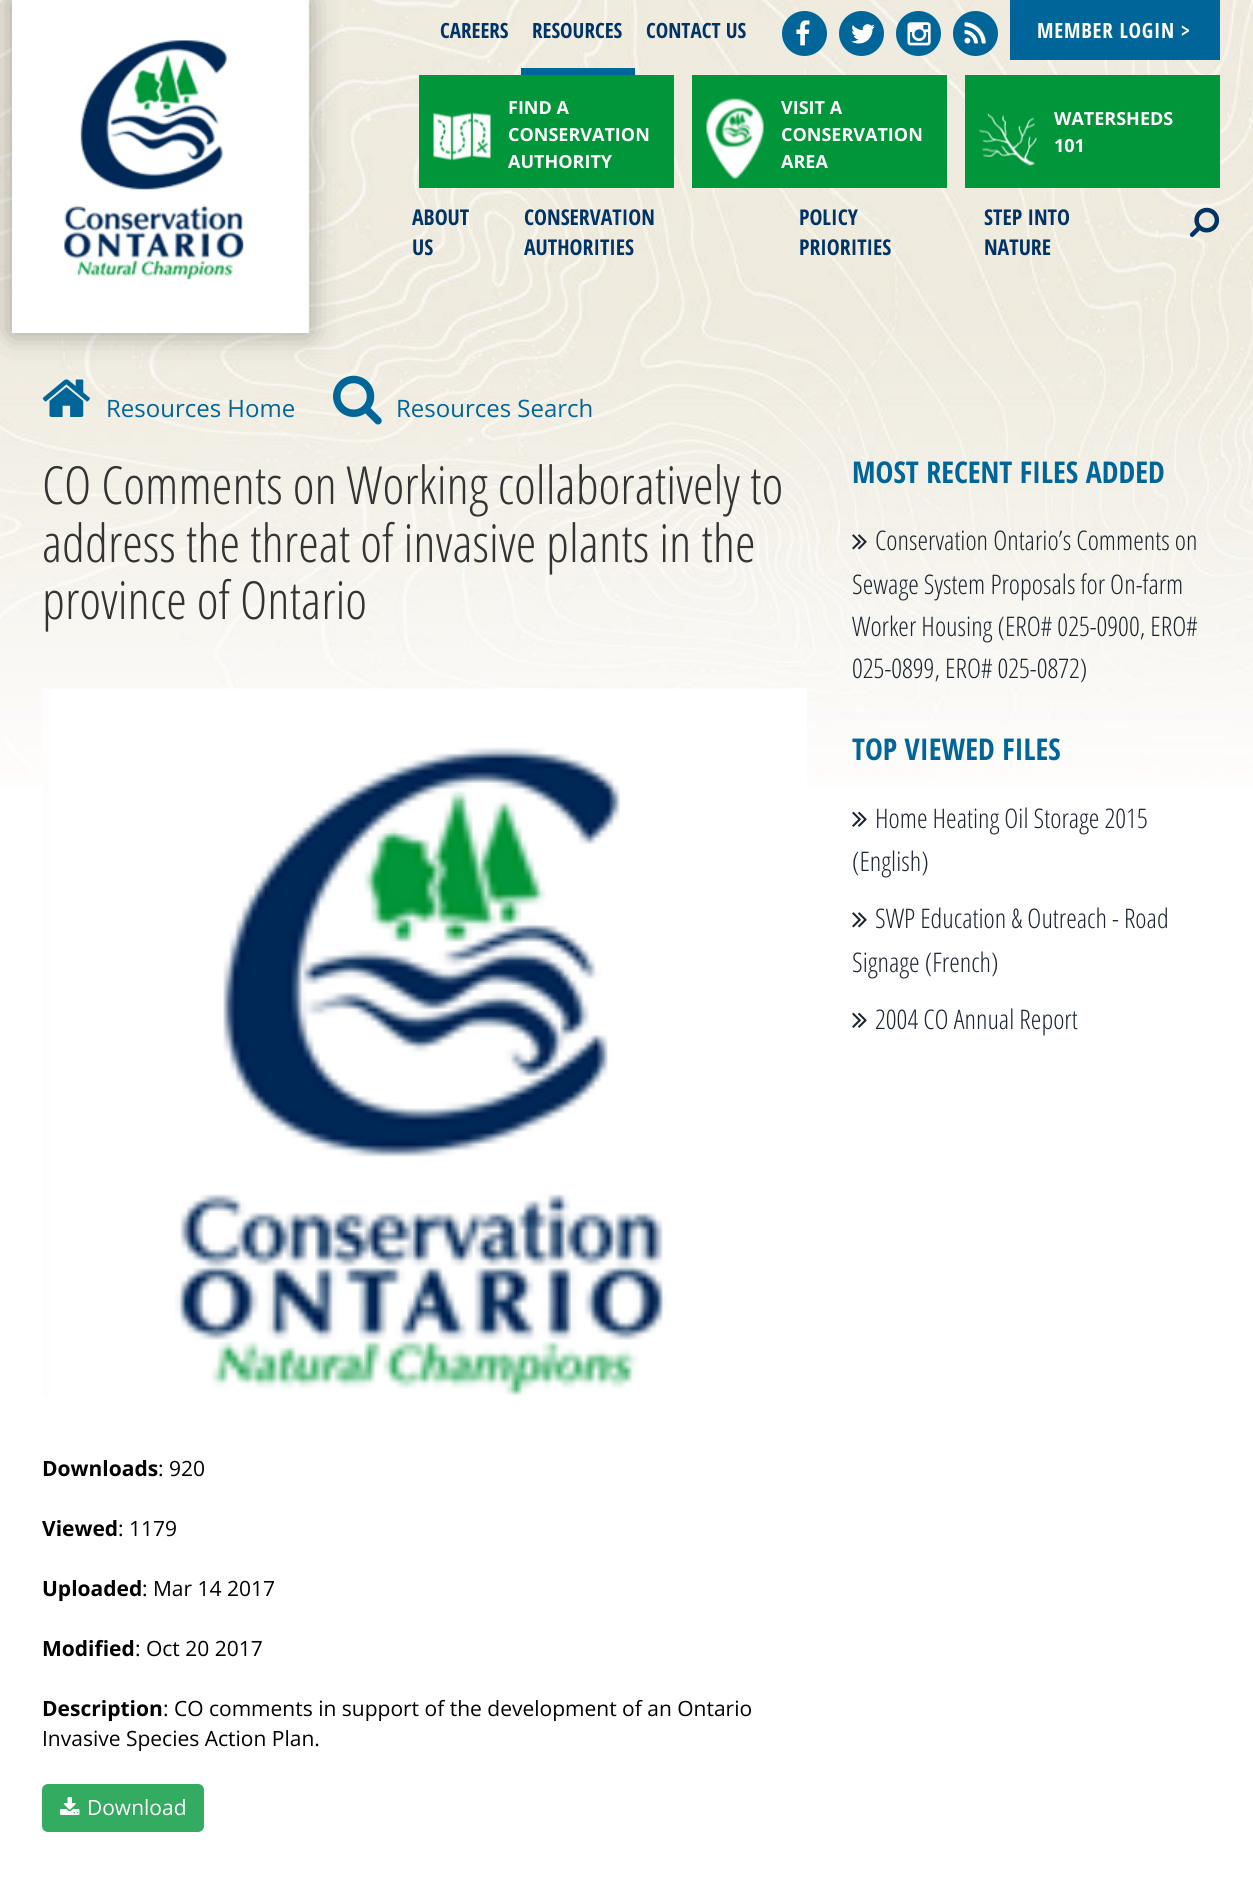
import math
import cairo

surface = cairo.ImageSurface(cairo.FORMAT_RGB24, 1253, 1885)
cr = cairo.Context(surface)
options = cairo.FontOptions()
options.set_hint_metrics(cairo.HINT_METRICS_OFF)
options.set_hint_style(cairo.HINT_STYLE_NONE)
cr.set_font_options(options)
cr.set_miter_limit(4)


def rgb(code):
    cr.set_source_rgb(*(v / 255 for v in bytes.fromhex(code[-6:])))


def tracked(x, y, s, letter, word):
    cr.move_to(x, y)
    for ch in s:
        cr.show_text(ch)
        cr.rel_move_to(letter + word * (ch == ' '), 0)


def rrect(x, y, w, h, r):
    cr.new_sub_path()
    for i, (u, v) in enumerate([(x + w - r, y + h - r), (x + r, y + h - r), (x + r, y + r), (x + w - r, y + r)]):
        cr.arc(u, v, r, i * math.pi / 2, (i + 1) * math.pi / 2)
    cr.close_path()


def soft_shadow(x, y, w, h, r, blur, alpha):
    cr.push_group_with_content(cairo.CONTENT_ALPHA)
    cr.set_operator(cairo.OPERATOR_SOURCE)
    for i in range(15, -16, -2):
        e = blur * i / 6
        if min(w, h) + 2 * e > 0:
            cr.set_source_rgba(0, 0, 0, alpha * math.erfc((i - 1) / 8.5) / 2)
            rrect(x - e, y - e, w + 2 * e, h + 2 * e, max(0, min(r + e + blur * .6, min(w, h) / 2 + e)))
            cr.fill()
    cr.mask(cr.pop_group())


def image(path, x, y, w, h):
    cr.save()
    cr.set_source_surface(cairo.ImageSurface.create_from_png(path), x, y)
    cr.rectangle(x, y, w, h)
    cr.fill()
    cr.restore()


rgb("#ffffff")
cr.paint()
image("img/1.png", 0, 0, 1253, 787)
image("img/12.png", 333, 375, 49, 50)
rgb("#000000")
soft_shadow(12, 0, 297, 333, 0, 15, 0.33)
image("img/2.png", 12, 0, 298, 333)
rgb("#006699")
cr.rectangle(521, 68, 114, 7)
cr.fill()
cr.arc(804.5, 33.5, 22.5, 0, 2 * math.pi)
cr.fill()
image("img/3.png", 796, 20, 14, 26)
cr.arc(861.5, 33.5, 22.5, 0, 2 * math.pi)
cr.fill()
image("img/4.png", 851, 24, 24, 20)
cr.arc(918.5, 33.5, 22.5, 0, 2 * math.pi)
cr.fill()
image("img/5.png", 907, 22, 24, 24)
cr.arc(975.5, 33.5, 22.5, 0, 2 * math.pi)
cr.fill()
image("img/6.png", 964, 22, 22, 22)
cr.rectangle(1010, 0, 210, 60)
cr.fill()
rgb("#009639")
cr.rectangle(419, 75, 255, 113)
cr.fill()
image("img/7.png", 433, 112, 58, 49)
cr.rectangle(692, 75, 255, 113)
cr.fill()
image("img/8.png", 706, 98, 58, 81)
cr.rectangle(965, 75, 255, 113)
cr.fill()
image("img/9.png", 979, 113, 58, 53)
image("img/10.png", 1189, 207, 31, 30)
image("img/11.png", 42, 379, 48, 38)
image("img/13.png", 42, 688, 765, 709)
rgb("#33ab60")
rrect(42, 1784, 162, 48, 6)
cr.fill()
image("img/14.png", 60, 1797, 20, 18)
image("img/15.png", 852, 534, 15, 16)
image("img/16.png", 852, 811, 15, 16)
image("img/17.png", 852, 912, 15, 16)
image("img/16.png", 852, 1012, 15, 16)
cr.select_font_face("Open Sans Condensed", cairo.FONT_SLANT_NORMAL, cairo.FONT_WEIGHT_BOLD)
cr.set_font_size(21)
rgb("#003366")
for x, y, s in [
    (440, 38, "CAREERS"),
    (532, 38, "RESOURCES"),
    (646, 38, "CONTACT US"),
]:
    cr.move_to(x, y)
    cr.show_text(s)
rgb("#ffffff")
tracked(1037, 38, "MEMBER LOGIN >", 0.75, 0)
cr.select_font_face("Open Sans", cairo.FONT_SLANT_NORMAL, cairo.FONT_WEIGHT_BOLD)
cr.set_font_size(18)
for x, y, s in [
    (508, 114, "FIND A"),
    (508, 141, "CONSERVATION"),
    (508, 168, "AUTHORITY"),
    (781, 114, "VISIT A"),
    (781, 141, "CONSERVATION"),
    (781, 168, "AREA"),
    (1054, 125, "WATERSHEDS"),
    (1054, 152, "101"),
]:
    cr.move_to(x, y)
    cr.show_text(s)
cr.select_font_face("Open Sans Condensed", cairo.FONT_SLANT_NORMAL, cairo.FONT_WEIGHT_BOLD)
cr.set_font_size(21.75)
rgb("#003366")
for x, y, s in [
    (412, 225, "ABOUT"),
    (412, 255, "US"),
    (524, 225, "CONSERVATION"),
    (524, 255, "AUTHORITIES"),
    (799, 225, "POLICY"),
    (799, 255, "PRIORITIES"),
    (984, 225, "STEP INTO"),
    (984, 255, "NATURE"),
]:
    cr.move_to(x, y)
    cr.show_text(s)
cr.select_font_face("Open Sans")
cr.set_font_size(24)
rgb("#006699")
cr.move_to(106, 417)
cr.show_text("Resources Home")
cr.move_to(396, 417)
cr.show_text("Resources Search")
cr.select_font_face("Open Sans Condensed Light")
cr.set_font_size(52.5)
rgb("#333333")
for x, y, s in [
    (42, 504, "CO Comments on Working collaboratively to"),
    (42, 562, "address the threat of invasive plants in the"),
    (42, 619, "province of Ontario"),
]:
    cr.move_to(x, y)
    cr.show_text(s)
cr.select_font_face("Open Sans", cairo.FONT_SLANT_NORMAL, cairo.FONT_WEIGHT_BOLD)
cr.set_font_size(21)
rgb("#000000")
cr.move_to(42, 1476)
cr.show_text("Downloads")
cr.select_font_face("Open Sans")
cr.move_to(158, 1476)
cr.show_text(": 920")
cr.select_font_face("Open Sans", cairo.FONT_SLANT_NORMAL, cairo.FONT_WEIGHT_BOLD)
cr.move_to(42, 1536)
cr.show_text("Viewed")
cr.select_font_face("Open Sans")
cr.move_to(118, 1536)
cr.show_text(": 1179")
cr.select_font_face("Open Sans", cairo.FONT_SLANT_NORMAL, cairo.FONT_WEIGHT_BOLD)
cr.move_to(42, 1596)
cr.show_text("Uploaded")
cr.select_font_face("Open Sans")
cr.move_to(142, 1596)
cr.show_text(": Mar 14 2017")
cr.select_font_face("Open Sans", cairo.FONT_SLANT_NORMAL, cairo.FONT_WEIGHT_BOLD)
cr.move_to(42, 1656)
cr.show_text("Modified")
cr.select_font_face("Open Sans")
cr.move_to(135, 1656)
cr.show_text(": Oct 20 2017")
cr.select_font_face("Open Sans", cairo.FONT_SLANT_NORMAL, cairo.FONT_WEIGHT_BOLD)
cr.move_to(42, 1716)
cr.show_text("Description")
cr.select_font_face("Open Sans")
cr.move_to(163, 1716)
cr.show_text(": CO comments in support of the development of an Ontario")
cr.move_to(42, 1746)
cr.show_text("Invasive Species Action Plan.")
rgb("#ffffff")
cr.move_to(87, 1815)
cr.show_text("Download")
cr.select_font_face("Open Sans Condensed", cairo.FONT_SLANT_NORMAL, cairo.FONT_WEIGHT_BOLD)
cr.set_font_size(30)
rgb("#006699")
cr.move_to(852, 483)
cr.show_text("MOST RECENT FILES ADDED")
cr.select_font_face("Open Sans Condensed Light")
cr.set_font_size(27)
rgb("#1b242f")
for x, y, s in [
    (875, 550, "Conservation Ontario’s Comments on"),
    (852, 594, "Sewage System Proposals for On-farm"),
    (852, 636, "Worker Housing (ERO# 025-0900, ERO#"),
    (852, 678, "025-0899, ERO# 025-0872)"),
]:
    cr.move_to(x, y)
    cr.show_text(s)
cr.select_font_face("Open Sans Condensed", cairo.FONT_SLANT_NORMAL, cairo.FONT_WEIGHT_BOLD)
cr.set_font_size(30)
rgb("#006699")
cr.move_to(852, 760)
cr.show_text("TOP VIEWED FILES")
cr.select_font_face("Open Sans Condensed Light")
cr.set_font_size(27)
rgb("#1b242f")
for x, y, s in [
    (875, 828, "Home Heating Oil Storage 2015"),
    (852, 871, "(English)"),
    (875, 928, "SWP Education & Outreach - Road"),
    (852, 972, "Signage (French)"),
    (875, 1029, "2004 CO Annual Report"),
]:
    cr.move_to(x, y)
    cr.show_text(s)
surface.write_to_png("page.png")
